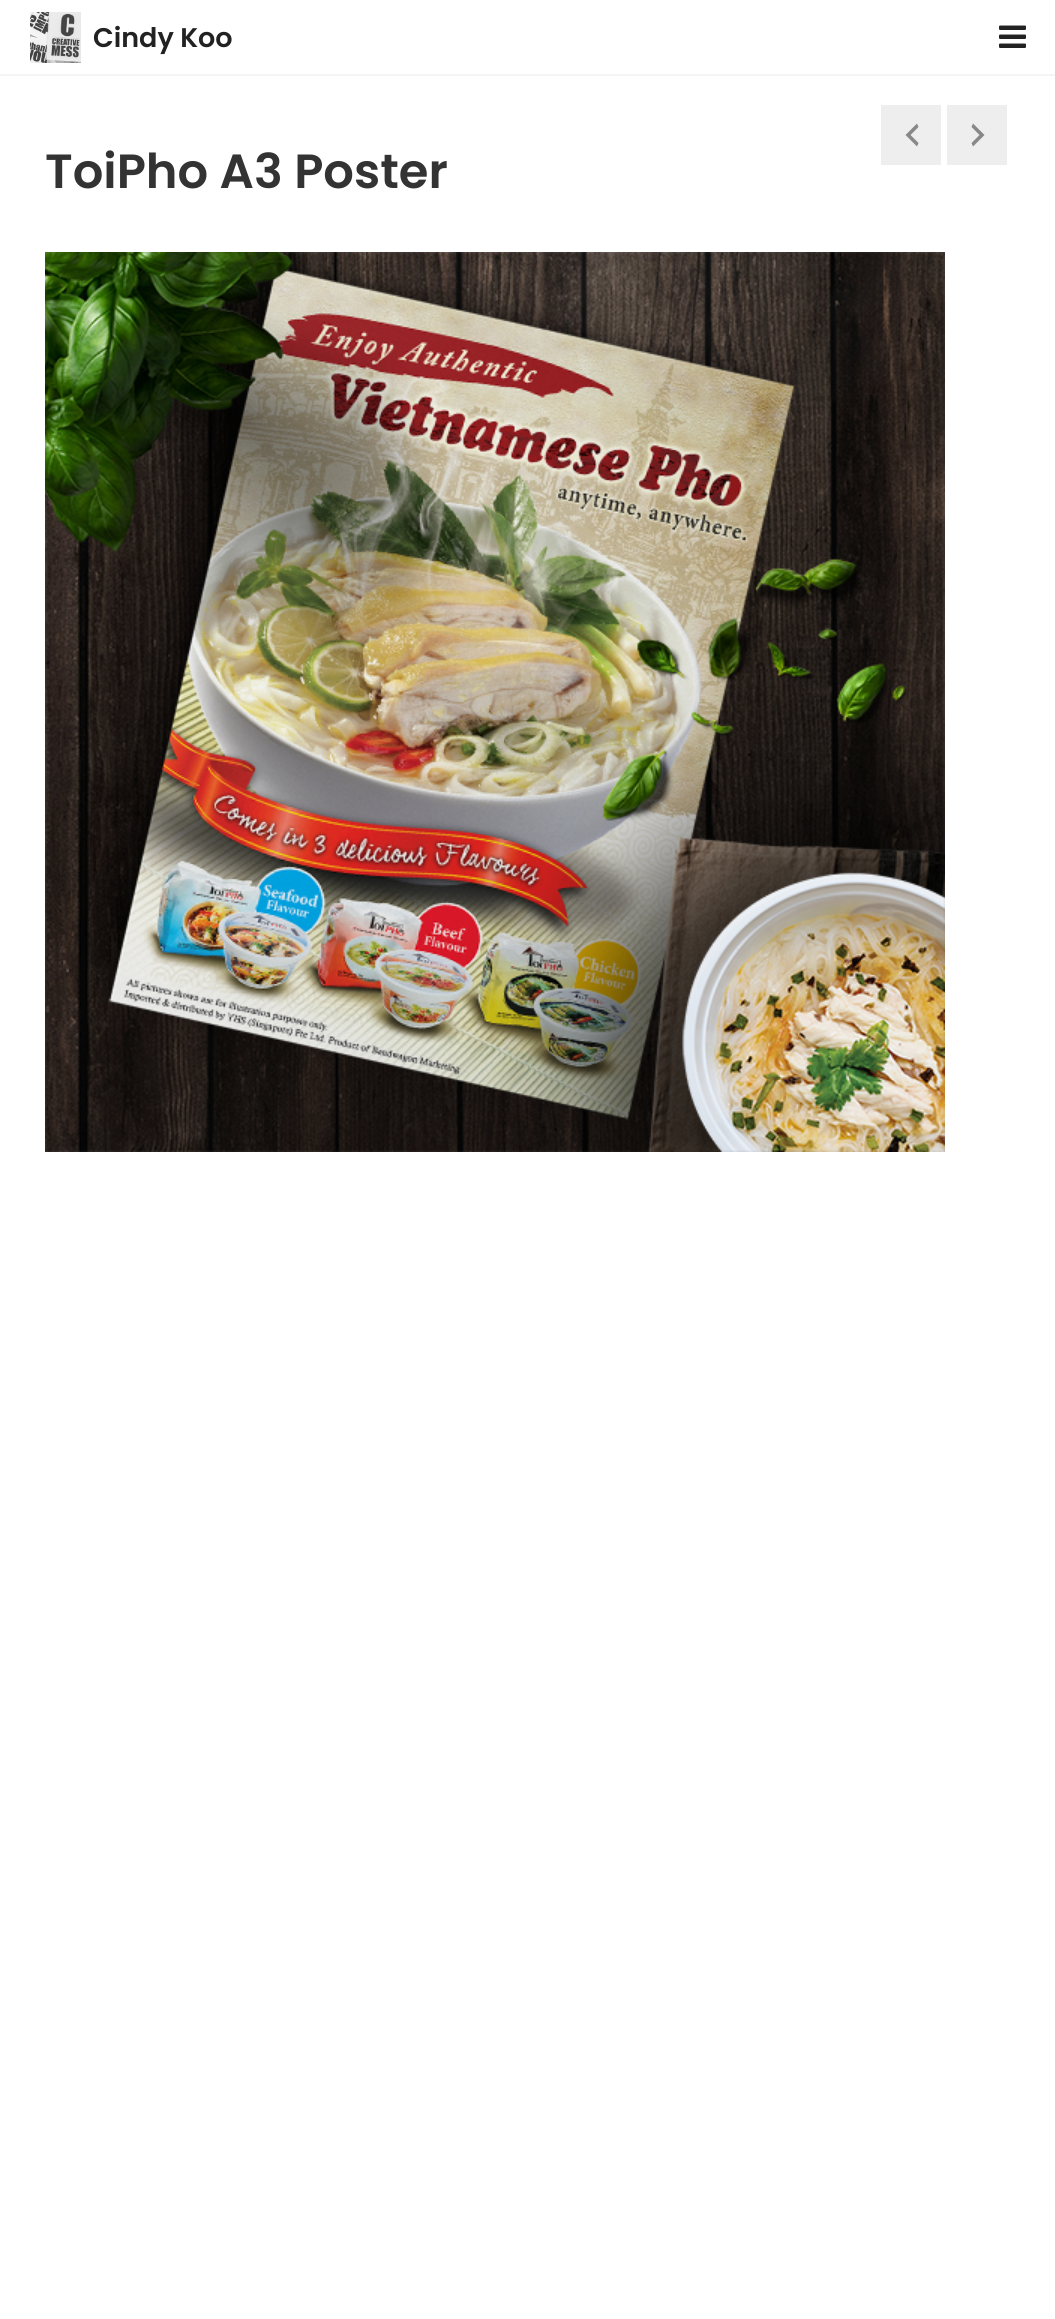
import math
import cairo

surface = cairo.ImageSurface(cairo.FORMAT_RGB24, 1055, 2319)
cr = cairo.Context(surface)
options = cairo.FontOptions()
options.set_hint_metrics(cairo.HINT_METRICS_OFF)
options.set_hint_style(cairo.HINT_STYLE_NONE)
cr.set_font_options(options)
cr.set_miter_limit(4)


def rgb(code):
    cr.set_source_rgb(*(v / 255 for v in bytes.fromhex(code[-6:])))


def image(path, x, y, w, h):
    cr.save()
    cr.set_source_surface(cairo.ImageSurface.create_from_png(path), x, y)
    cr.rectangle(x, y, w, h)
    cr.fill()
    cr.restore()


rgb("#ffffff")
cr.paint()
rgb("#f5f5f5")
cr.rectangle(0, 74, 1055, 2)
cr.fill()
image("img/1.png", 30, 12, 51, 51)
image("img/2.png", 999, 25, 27, 23)
rgb("#eeeeee")
cr.rectangle(881, 105, 60, 60)
cr.fill()
rgb("#888888")
cr.new_path()
cr.move_to(918.5, 127)
cr.line_to(910.5, 135)
cr.line_to(918.5, 143)
cr.line_to(917, 146.5)
cr.line_to(905.5, 135)
cr.line_to(917, 123.5)
cr.close_path()
cr.fill()
rgb("#eeeeee")
cr.rectangle(947, 105, 60, 60)
cr.fill()
rgb("#888888")
cr.new_path()
cr.move_to(971.5, 143)
cr.line_to(979.5, 135)
cr.line_to(971.5, 127)
cr.line_to(973, 123.5)
cr.line_to(984.5, 135)
cr.line_to(973, 146.5)
cr.close_path()
cr.fill()
image("img/3.png", 45, 252, 900, 900)
cr.select_font_face("Poppins SemiBold")
cr.set_font_size(27)
rgb("#222222")
cr.move_to(93, 47)
cr.show_text("Cindy Koo")
cr.set_font_size(48)
rgb("#333333")
cr.move_to(45, 188)
cr.show_text("ToiPho A3 Poster")
surface.write_to_png("page.png")
